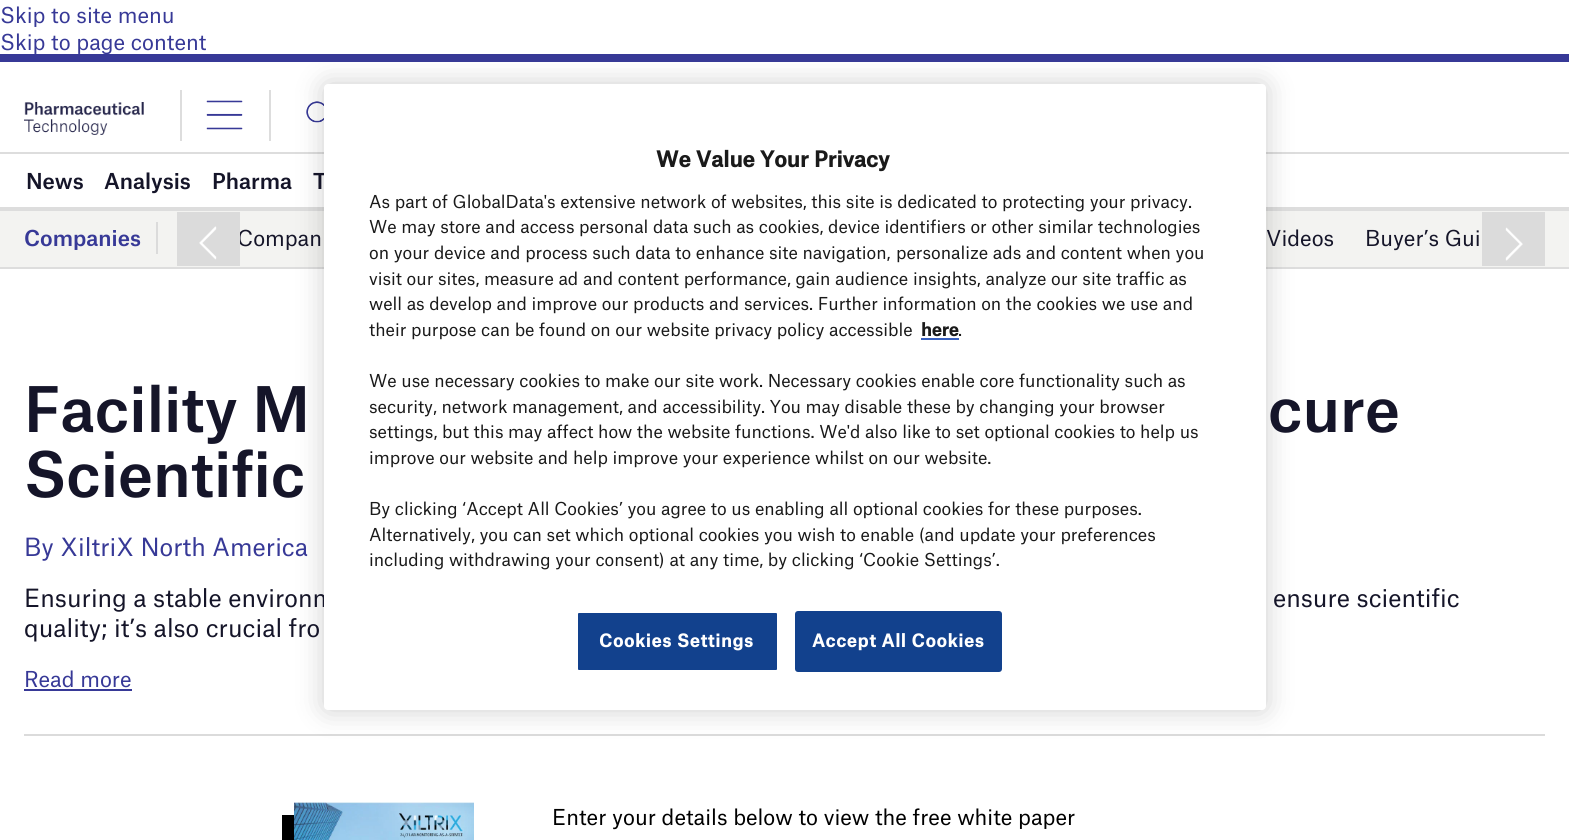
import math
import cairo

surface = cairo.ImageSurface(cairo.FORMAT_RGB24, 1569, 840)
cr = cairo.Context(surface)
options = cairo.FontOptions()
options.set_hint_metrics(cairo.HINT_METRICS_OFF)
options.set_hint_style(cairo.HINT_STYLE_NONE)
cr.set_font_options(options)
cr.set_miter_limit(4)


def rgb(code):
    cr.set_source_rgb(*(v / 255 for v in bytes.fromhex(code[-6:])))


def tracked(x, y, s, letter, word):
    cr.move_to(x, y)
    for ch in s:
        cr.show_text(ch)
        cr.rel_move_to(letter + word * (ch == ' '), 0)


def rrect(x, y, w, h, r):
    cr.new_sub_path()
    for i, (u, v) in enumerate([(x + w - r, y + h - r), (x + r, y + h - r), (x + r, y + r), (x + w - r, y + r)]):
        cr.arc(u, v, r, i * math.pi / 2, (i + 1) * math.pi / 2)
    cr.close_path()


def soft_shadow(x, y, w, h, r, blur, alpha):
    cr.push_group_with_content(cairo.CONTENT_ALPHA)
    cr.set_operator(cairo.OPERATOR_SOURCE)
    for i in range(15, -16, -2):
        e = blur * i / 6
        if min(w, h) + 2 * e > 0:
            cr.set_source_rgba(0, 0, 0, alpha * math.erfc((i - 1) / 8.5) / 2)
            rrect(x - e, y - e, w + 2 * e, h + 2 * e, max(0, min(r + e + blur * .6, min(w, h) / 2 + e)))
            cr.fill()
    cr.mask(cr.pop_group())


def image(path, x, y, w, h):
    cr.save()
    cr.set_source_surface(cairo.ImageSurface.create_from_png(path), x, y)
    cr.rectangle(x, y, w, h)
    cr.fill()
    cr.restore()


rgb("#ffffff")
cr.paint()
rgb("#373997")
cr.rectangle(0, 54, 1569, 8)
cr.fill()
image("img/3.png", 306, 101, 18, 22)
for x, y, w, h, color in [
    (0, 152, 1569, 2, "#dddddd"),
    (0, 207, 1569, 4, "#dddddd"),
    (0, 211, 1569, 56, "#f3f3f1"),
    (0, 267, 1569, 2, "#dddddd"),
    (24, 734, 1521, 2, "#dbdbdb"),
]:
    rgb(color)
    cr.rectangle(x, y, w, h)
    cr.fill()
rgb("#000000")
soft_shadow(324, 84, 942, 626, 4, 13.5, 0.2)
image("img/1.png", 24, 102, 120, 33)
image("img/2.png", 206, 100, 37, 30)
for x, y, w, h, color in [
    (269, 90, 2, 51, "#dddddd"),
    (180, 90, 2, 51, "#dddddd"),
    (156, 222, 2, 32, "#dbdbdb"),
    (1482, 212, 63, 54, "#dbdbdb"),
]:
    rgb(color)
    cr.rectangle(x, y, w, h)
    cr.fill()
image("img/5.png", 1505, 227, 18, 34)
rgb("#373997")
cr.rectangle(24, 689, 108, 2)
cr.fill()
rgb("#000000")
cr.new_path()
cr.move_to(282, 815)
cr.line_to(282, 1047)
cr.line_to(462, 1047)
cr.line_to(462, 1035)
cr.line_to(294, 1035)
cr.line_to(294, 815)
cr.close_path()
cr.fill()
image("img/6.png", 294, 802, 180, 38)
cr.select_font_face("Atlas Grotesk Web")
cr.set_font_size(21)
rgb("#373997")
cr.move_to(0, 23)
cr.show_text("Skip to site menu")
cr.move_to(0, 50)
cr.show_text("Skip to page content")
cr.select_font_face("Atlas Grotesk Web Medium")
rgb("#151529")
for x, y, s in [
    (26, 189, "News"),
    (104, 189, "Analysis"),
    (212, 189, "Pharma"),
    (313, 189, "T"),
]:
    cr.move_to(x, y)
    cr.show_text(s)
rgb("#373997")
cr.move_to(24, 246)
cr.show_text("Companies")
cr.select_font_face("Atlas Grotesk Web")
rgb("#151529")
cr.move_to(237, 246)
cr.show_text("Compan")
rgb("#dbdbdb")
cr.rectangle(177, 212, 63, 54)
cr.fill()
image("img/4.png", 199, 226, 18, 34)
rgb("#151529")
cr.move_to(1266, 246)
cr.show_text("Videos")
cr.move_to(1365, 246)
cr.show_text("Buyer’s Gui")
cr.select_font_face("Atlas Grotesk Web Medium")
cr.set_font_size(60)
for x, y, s in [
    (24, 432, "Facility M"),
    (1268, 432, "cure"),
    (24, 497, "Scientific"),
]:
    cr.move_to(x, y)
    cr.show_text(s)
cr.select_font_face("Atlas Grotesk Web")
cr.set_font_size(24)
rgb("#373997")
cr.move_to(24, 556)
cr.show_text("By XiltriX North America")
rgb("#151529")
cr.move_to(24, 607)
cr.show_text("Ensuring a stable environm")
rgb("#ffffff")
rrect(324, 84, 942, 626, 4)
cr.fill()
rgb("#12418d")
rrect(577, 612, 201, 59, 2)
cr.fill_preserve()
rgb("#ffffff")
cr.stroke()
cr.select_font_face("Atlas Grotesk Web", cairo.FONT_SLANT_NORMAL, cairo.FONT_WEIGHT_BOLD)
cr.set_font_size(17.05)
tracked(599, 647, "Cookies Settings", 0.8, 0)
rgb("#12418d")
rrect(796, 612, 205, 59, 2)
cr.fill_preserve()
cr.stroke()
rgb("#ffffff")
tracked(812, 647, "Accept All Cookies", 0.8, 0)
cr.select_font_face("Atlas Grotesk Web")
rgb("#1a1a1a")
for x, y, s in [
    (369, 566, "including withdrawing your consent) at any time, by clicking ‘Cookie Settings’."),
    (369, 541, "Alternatively, you can set which optional cookies you wish to enable (and update your preferences"),
    (369, 515, "By clicking ‘Accept All Cookies’ you agree to us enabling all optional cookies for these purposes."),
    (369, 464, "improve our website and help improve your experience whilst on our website."),
    (369, 438, "settings, but this may affect how the website functions. We'd also like to set optional cookies to help us"),
    (369, 413, "security, network management, and accessibility. You may disable these by changing your browser"),
    (369, 387, "We use necessary cookies to make our site work. Necessary cookies enable core functionality such as"),
    (958, 336, "."),
]:
    cr.move_to(x, y)
    cr.show_text(s)
cr.select_font_face("Atlas Grotesk Web", cairo.FONT_SLANT_NORMAL, cairo.FONT_WEIGHT_BOLD)
cr.move_to(921, 336)
cr.show_text("here")
rgb("#3860be")
cr.rectangle(921, 338, 38, 2)
cr.fill()
cr.select_font_face("Atlas Grotesk Web")
rgb("#1a1a1a")
for x, y, s in [
    (369, 336, "their purpose can be found on our website privacy policy accessible"),
    (369, 310, "well as develop and improve our products and services. Further information on the cookies we use and"),
    (369, 285, "visit our sites, measure ad and content performance, gain audience insights, analyze our site traffic as"),
    (896, 259, "personalize ads and content when you"),
    (369, 259, "on your device and process such data to enhance site navigation,"),
    (369, 233, "We may store and access personal data such as cookies, device identifiers or other similar technologies"),
    (369, 208, "As part of GlobalData's extensive network of websites, this site is dedicated to protecting your privacy."),
]:
    cr.move_to(x, y)
    cr.show_text(s)
cr.select_font_face("Atlas Grotesk Web", cairo.FONT_SLANT_NORMAL, cairo.FONT_WEIGHT_BOLD)
cr.set_font_size(21)
cr.move_to(656, 167)
cr.show_text("We Value Your Privacy")
cr.select_font_face("Atlas Grotesk Web")
cr.set_font_size(24)
rgb("#151529")
cr.move_to(1273, 607)
cr.show_text("ensure scientific")
cr.move_to(24, 637)
cr.show_text("quality; it’s also crucial fro")
cr.set_font_size(21)
rgb("#373997")
cr.move_to(24, 687)
cr.show_text("Read more")
rgb("#000000")
cr.move_to(552, 825)
cr.show_text("Enter your details below to view the free white paper")
surface.write_to_png("page.png")
